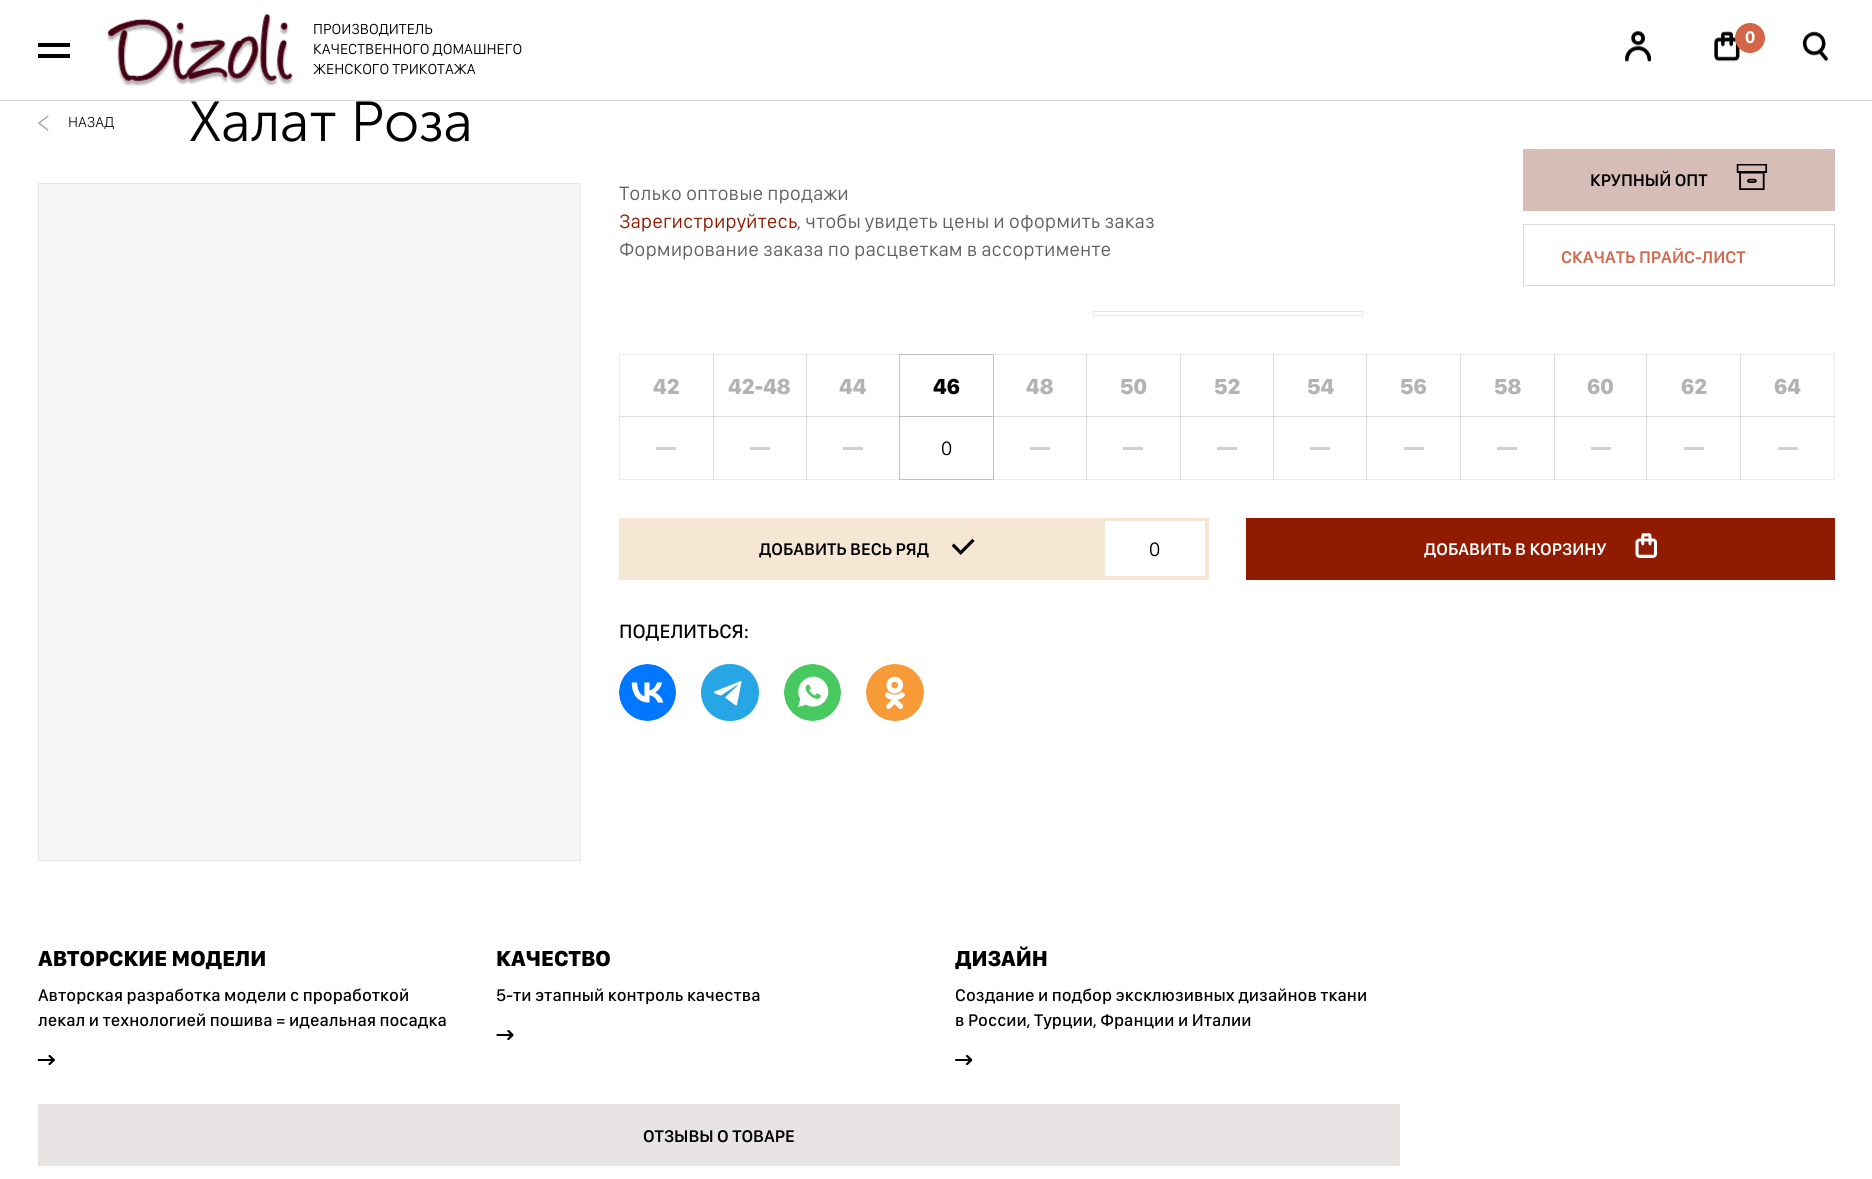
import math
import cairo

surface = cairo.ImageSurface(cairo.FORMAT_RGB24, 1872, 1179)
cr = cairo.Context(surface)
options = cairo.FontOptions()
options.set_hint_metrics(cairo.HINT_METRICS_OFF)
options.set_hint_style(cairo.HINT_STYLE_NONE)
cr.set_font_options(options)
cr.set_miter_limit(4)


def rgb(code):
    cr.set_source_rgb(*(v / 255 for v in bytes.fromhex(code[-6:])))


def rrect(x, y, w, h, r):
    cr.new_sub_path()
    for i, (u, v) in enumerate([(x + w - r, y + h - r), (x + r, y + h - r), (x + r, y + r), (x + w - r, y + r)]):
        cr.arc(u, v, r, i * math.pi / 2, (i + 1) * math.pi / 2)
    cr.close_path()


def image(path, x, y, w, h):
    cr.save()
    cr.set_source_surface(cairo.ImageSurface.create_from_png(path), x, y)
    cr.rectangle(x, y, w, h)
    cr.fill()
    cr.restore()


rgb("#ffffff")
cr.paint()
for x, y, w, h, color in [
    (619, 354, 1, 64, "#ececec"),
    (619, 354, 95, 1, "#ececec"),
    (619, 354, 1, 1, "#dfdfdf"),
    (713, 354, 1, 64, "#dfdfdf"),
    (713, 354, 95, 1, "#ececec"),
    (713, 354, 1, 1, "#d0d0d0"),
    (806, 354, 1, 64, "#dfdfdf"),
    (806, 354, 94, 1, "#ececec"),
    (806, 354, 2, 1, "#dfdfdf"),
    (806, 354, 1, 1, "#d0d0d0"),
    (993, 354, 95, 1, "#ececec"),
    (1086, 354, 1, 64, "#dfdfdf"),
    (1086, 354, 95, 1, "#ececec"),
    (1086, 354, 2, 1, "#dfdfdf"),
    (1086, 354, 1, 1, "#d0d0d0"),
    (1180, 354, 1, 64, "#dfdfdf"),
    (1180, 354, 94, 1, "#ececec"),
    (1180, 354, 1, 1, "#d0d0d0"),
    (1273, 354, 1, 64, "#dfdfdf"),
    (1273, 354, 95, 1, "#ececec"),
    (1273, 354, 1, 1, "#d0d0d0"),
    (1366, 354, 1, 64, "#dfdfdf"),
    (1366, 354, 95, 1, "#ececec"),
    (1366, 354, 2, 1, "#dfdfdf"),
    (1366, 354, 1, 1, "#d0d0d0"),
    (1460, 354, 1, 64, "#dfdfdf"),
    (1460, 354, 95, 1, "#ececec"),
    (1460, 354, 1, 1, "#d0d0d0"),
    (1554, 354, 1, 64, "#dfdfdf"),
    (1554, 354, 94, 1, "#ececec"),
    (1554, 354, 1, 1, "#d0d0d0"),
    (1646, 354, 1, 64, "#dfdfdf"),
    (1646, 354, 95, 1, "#ececec"),
    (1646, 354, 2, 1, "#dfdfdf"),
    (1646, 354, 1, 1, "#d0d0d0"),
    (1740, 354, 1, 64, "#dfdfdf"),
    (1834, 354, 1, 64, "#ececec"),
    (619, 479, 281, 1, "#ececec"),
    (619, 416, 281, 1, "#dfdfdf"),
    (806, 479, 2, 1, "#dfdfdf"),
    (806, 416, 2, 1, "#d0d0d0"),
    (993, 479, 748, 1, "#ececec"),
    (993, 416, 842, 1, "#dfdfdf"),
    (1086, 479, 2, 1, "#dfdfdf"),
    (1086, 416, 2, 1, "#d0d0d0"),
    (1366, 479, 2, 1, "#dfdfdf"),
    (1366, 416, 2, 1, "#d0d0d0"),
    (1646, 479, 2, 1, "#dfdfdf"),
    (1646, 416, 2, 1, "#d0d0d0"),
    (0, 100, 1872, 1, "#d5d5d5"),
    (38, 43, 32, 4, "#000000"),
    (38, 54, 32, 4, "#000000"),
]:
    rgb(color)
    cr.rectangle(x, y, w, h)
    cr.fill()
image("img/1.png", 107, 13, 186, 73)
image("img/2.png", 1625, 31, 27, 31)
image("img/3.png", 1714, 31, 26, 31)
rgb("#d36649")
cr.arc(1750, 38, 15, 0, 2 * math.pi)
cr.fill()
image("img/4.png", 1803, 31, 25, 31)
image("img/5.png", 38, 115, 11, 16)
rgb("#f6f6f6")
cr.rectangle(38.5, 183.5, 542, 677)
cr.fill_preserve()
rgb("#e8e8e8")
cr.set_line_width(1)
cr.stroke()
rgb("#d6bdb7")
cr.rectangle(1523, 149, 312, 62)
cr.fill()
image("img/6.png", 1736, 164, 32, 26)
cr.rectangle(1523.5, 224.5, 311, 61)
rgb("#dadada")
cr.stroke()
cr.rectangle(1093.5, 311.5, 269, 4)
rgb("#e8e8e8")
cr.stroke()
for x, y, w, h, color in [
    (899, 354, 95, 1, "#c1c1c1"),
    (899, 416, 95, 1, "#c1c1c1"),
    (993, 416, 1, 64, "#c1c1c1"),
    (993, 354, 1, 64, "#c1c1c1"),
    (899, 479, 95, 1, "#c1c1c1"),
    (899, 416, 1, 64, "#c1c1c1"),
    (899, 354, 1, 64, "#c1c1c1"),
    (1740, 354, 95, 1, "#ececec"),
    (1740, 354, 1, 1, "#d0d0d0"),
    (1834, 354, 1, 1, "#dfdfdf"),
    (713, 416, 1, 64, "#dfdfdf"),
    (713, 416, 1, 2, "#d0d0d0"),
    (713, 416, 1, 1, "#c9c9c9"),
    (713, 479, 1, 1, "#d6d6d6"),
    (619, 416, 1, 64, "#ececec"),
    (619, 416, 1, 2, "#dfdfdf"),
    (619, 416, 1, 1, "#d6d6d6"),
    (806, 416, 1, 64, "#dfdfdf"),
    (806, 416, 1, 2, "#d0d0d0"),
    (806, 416, 1, 1, "#c9c9c9"),
    (806, 479, 1, 1, "#d6d6d6"),
    (1086, 416, 1, 64, "#dfdfdf"),
    (1086, 416, 1, 2, "#d0d0d0"),
    (1086, 416, 1, 1, "#c9c9c9"),
    (1086, 479, 1, 1, "#d6d6d6"),
    (1180, 416, 1, 64, "#dfdfdf"),
    (1180, 416, 1, 2, "#d0d0d0"),
    (1180, 416, 1, 1, "#c9c9c9"),
    (1180, 479, 1, 1, "#d6d6d6"),
    (1273, 416, 1, 64, "#dfdfdf"),
    (1273, 416, 1, 2, "#d0d0d0"),
    (1273, 416, 1, 1, "#c9c9c9"),
    (1273, 479, 1, 1, "#d6d6d6"),
    (1366, 416, 1, 64, "#dfdfdf"),
    (1366, 416, 1, 2, "#d0d0d0"),
    (1366, 416, 1, 1, "#c9c9c9"),
    (1366, 479, 1, 1, "#d6d6d6"),
    (1460, 416, 1, 64, "#dfdfdf"),
    (1460, 416, 1, 2, "#d0d0d0"),
    (1460, 416, 1, 1, "#c9c9c9"),
    (1460, 479, 1, 1, "#d6d6d6"),
    (1554, 416, 1, 64, "#dfdfdf"),
    (1554, 416, 1, 2, "#d0d0d0"),
    (1554, 416, 1, 1, "#c9c9c9"),
    (1554, 479, 1, 1, "#d6d6d6"),
    (1646, 416, 1, 64, "#dfdfdf"),
    (1646, 416, 1, 2, "#d0d0d0"),
    (1646, 416, 1, 1, "#c9c9c9"),
    (1646, 479, 1, 1, "#d6d6d6"),
    (1834, 416, 1, 64, "#ececec"),
    (1740, 479, 95, 1, "#ececec"),
    (1740, 416, 1, 64, "#dfdfdf"),
    (1740, 416, 1, 2, "#d0d0d0"),
    (1740, 416, 1, 1, "#c9c9c9"),
    (1740, 479, 1, 1, "#d6d6d6"),
    (1834, 416, 1, 2, "#dfdfdf"),
    (1834, 416, 1, 1, "#d6d6d6"),
    (619, 518, 590, 62, "#f6e7d4"),
]:
    rgb(color)
    cr.rectangle(x, y, w, h)
    cr.fill()
image("img/7.png", 951, 539, 24, 16)
rgb("#ffffff")
cr.rectangle(1105, 521, 100, 55)
cr.fill()
rgb("#911b00")
cr.rectangle(1246, 518, 589, 62)
cr.fill()
image("img/8.png", 1635, 533, 22, 25)
image("img/9.png", 619, 664, 57, 57)
rgb("#27a6e5")
rrect(701, 664, 58, 57, 28.5)
cr.fill()
rgb("#fefefe")
cr.new_path()
cr.move_to(741.5, 682)
cr.line_to(737, 704.5)
cr.curve_to(737, 705.5, 735.5, 705.5, 735, 705)
cr.line_to(725, 697.5)
cr.line_to(736.5, 686.5)
cr.curve_to(736.5, 686.5, 738, 685.5, 737.5, 685)
cr.line_to(737, 685)
cr.line_to(721, 695.5)
cr.curve_to(721, 695.5, 712, 693.5, 714.5, 691.5)
cr.line_to(739.5, 681.5)
cr.curve_to(740, 681, 741.5, 680.5, 741.5, 682)
cr.close_path()
cr.fill()
image("img/10.png", 784, 664, 57, 57)
image("img/11.png", 866, 664, 58, 57)
image("img/12.png", 37, 1055, 18, 10)
image("img/13.png", 496, 1030, 18, 10)
image("img/14.png", 955, 1055, 18, 10)
rgb("#e7e4e3")
cr.rectangle(38, 1104, 1362, 62)
cr.fill()
cr.select_font_face("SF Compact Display")
cr.set_font_size(15)
rgb("#000000")
for x, y, s in [
    (313, 34, "ПРОИЗВОДИТЕЛЬ"),
    (313, 54, "КАЧЕСТВЕННОГО ДОМАШНЕГО"),
    (313, 74, "ЖЕНСКОГО ТРИКОТАЖА"),
]:
    cr.move_to(x, y)
    cr.show_text(s)
cr.select_font_face("SF Compact Display", cairo.FONT_SLANT_NORMAL, cairo.FONT_WEIGHT_BOLD)
cr.set_font_size(17.5)
rgb("#ffffff")
cr.move_to(1745, 43)
cr.show_text("0")
cr.select_font_face("SF Compact Display Light")
cr.set_font_size(15)
rgb("#000000")
cr.move_to(68, 127)
cr.show_text("НАЗАД")
cr.select_font_face("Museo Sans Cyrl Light")
cr.set_font_size(56.25)
cr.move_to(189, 141)
cr.show_text("Халат Роза")
cr.select_font_face("SF Compact Display")
cr.set_font_size(20)
rgb("#626262")
cr.move_to(619, 200)
cr.show_text("Только оптовые продажи")
rgb("#911b00")
cr.move_to(619, 228)
cr.show_text("Зарегистрируйтесь")
rgb("#626262")
cr.move_to(797, 228)
cr.show_text(", чтобы увидеть цены и оформить заказ")
cr.move_to(619, 256)
cr.show_text("Формирование заказа по расцветкам в ассортименте")
cr.select_font_face("SF Compact Display SemiBold")
cr.set_font_size(17.5)
rgb("#000000")
cr.move_to(1590, 186)
cr.show_text("КРУПНЫЙ ОПТ")
rgb("#d36649")
cr.move_to(1561, 263)
cr.show_text("СКАЧАТЬ ПРАЙС-ЛИСТ")
cr.select_font_face("SF Compact Display Black")
cr.set_font_size(22.5)
rgb("#b3b3b3")
for x, y, s in [
    (653, 394, "42"),
    (728, 394, "42-48"),
    (839, 394, "44"),
]:
    cr.move_to(x, y)
    cr.show_text(s)
rgb("#000000")
cr.move_to(933, 394)
cr.show_text("46")
rgb("#b3b3b3")
for x, y, s in [
    (1026, 394, "48"),
    (1120, 394, "50"),
    (1214, 394, "52"),
    (1307, 394, "54"),
    (1400, 394, "56"),
    (1494, 394, "58"),
    (1587, 394, "60"),
    (1681, 394, "62"),
    (1774, 394, "64"),
]:
    cr.move_to(x, y)
    cr.show_text(s)
cr.set_font_size(20)
rgb("#d0d0d0")
for x, y, s in [
    (656, 454, "—"),
    (750, 454, "—"),
    (843, 454, "—"),
]:
    cr.move_to(x, y)
    cr.show_text(s)
cr.select_font_face("SF Compact Display")
rgb("#000000")
cr.move_to(941, 455)
cr.show_text("0")
cr.select_font_face("SF Compact Display Black")
rgb("#d0d0d0")
for x, y, s in [
    (1030, 454, "—"),
    (1123, 454, "—"),
    (1217, 454, "—"),
    (1310, 454, "—"),
    (1404, 454, "—"),
    (1497, 454, "—"),
    (1591, 454, "—"),
    (1684, 454, "—"),
    (1778, 454, "—"),
]:
    cr.move_to(x, y)
    cr.show_text(s)
cr.select_font_face("SF Compact Display SemiBold")
cr.set_font_size(17.5)
rgb("#000000")
cr.move_to(759, 555)
cr.show_text("ДОБАВИТЬ ВЕСЬ РЯД")
cr.select_font_face("SF Compact Display")
cr.set_font_size(20)
cr.move_to(1149, 556)
cr.show_text("0")
cr.select_font_face("SF Compact Display SemiBold")
cr.set_font_size(17.5)
rgb("#ffffff")
cr.move_to(1424, 555)
cr.show_text("ДОБАВИТЬ В КОРЗИНУ")
cr.select_font_face("SF Compact Display Medium")
cr.set_font_size(20)
rgb("#000000")
cr.move_to(619, 638)
cr.show_text("ПОДЕЛИТЬСЯ:")
cr.select_font_face("SF Compact Display Black")
cr.set_font_size(22.5)
cr.move_to(38, 966)
cr.show_text("АВТОРСКИЕ МОДЕЛИ")
cr.select_font_face("SF Compact Display Medium")
cr.set_font_size(17.5)
cr.move_to(38, 1001)
cr.show_text("Авторская разработка модели с проработкой")
cr.move_to(38, 1026)
cr.show_text("лекал и технологией пошива = идеальная посадка")
cr.select_font_face("SF Compact Display Black")
cr.set_font_size(22.5)
cr.move_to(496, 966)
cr.show_text("КАЧЕСТВО")
cr.select_font_face("SF Compact Display Medium")
cr.set_font_size(17.5)
cr.move_to(496, 1001)
cr.show_text("5-ти этапный контроль качества")
cr.select_font_face("SF Compact Display Black")
cr.set_font_size(22.5)
cr.move_to(955, 966)
cr.show_text("ДИЗАЙН")
cr.select_font_face("SF Compact Display Medium")
cr.set_font_size(17.5)
cr.move_to(955, 1001)
cr.show_text("Создание и подбор эксклюзивных дизайнов ткани")
cr.move_to(955, 1026)
cr.show_text("в России, Турции, Франции и Италии")
cr.select_font_face("SF Compact Display SemiBold")
cr.move_to(643, 1142)
cr.show_text("ОТЗЫВЫ О ТОВАРЕ")
surface.write_to_png("page.png")
